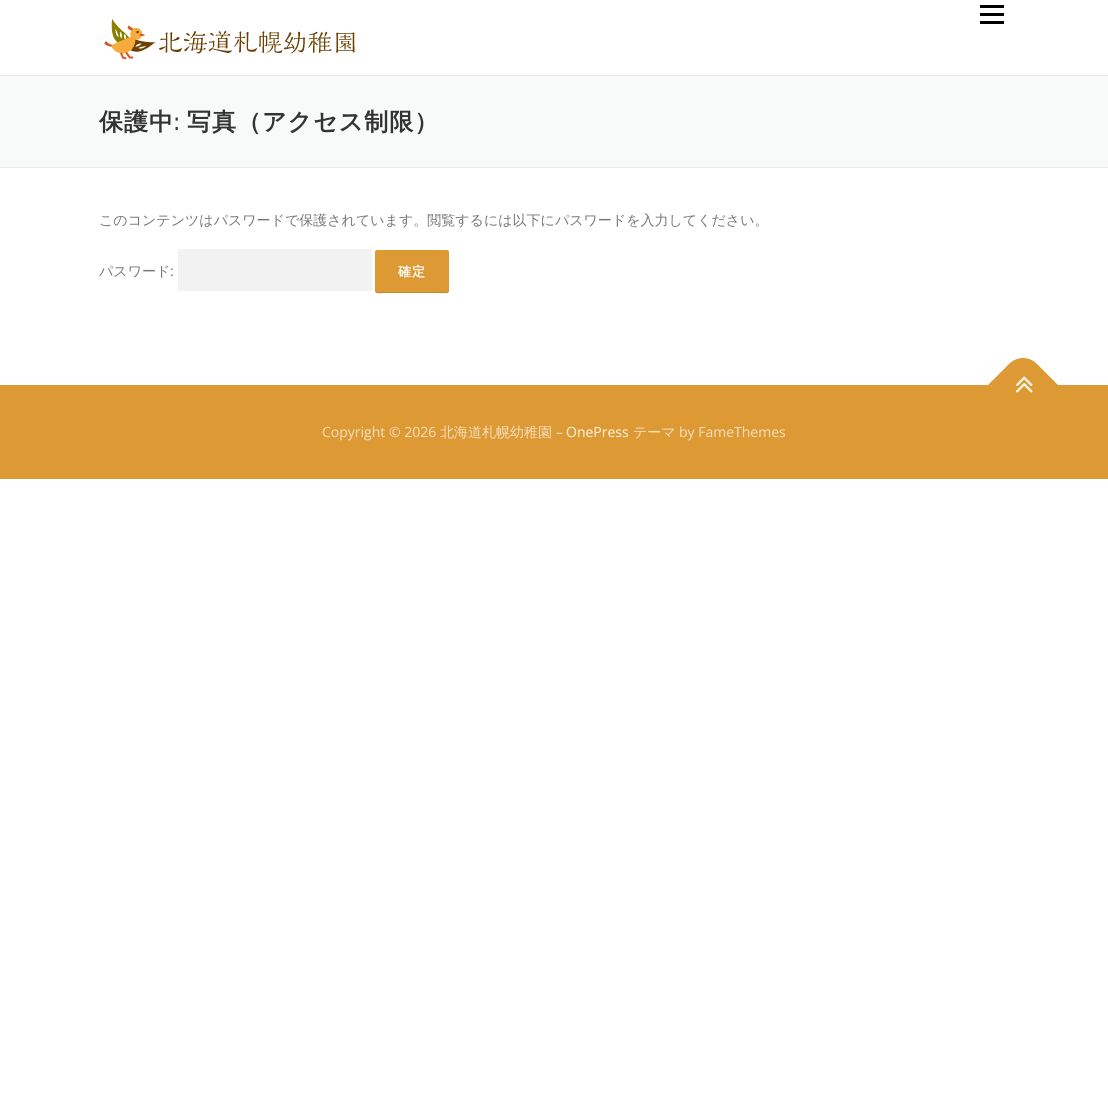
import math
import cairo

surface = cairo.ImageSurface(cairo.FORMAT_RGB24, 1108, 1101)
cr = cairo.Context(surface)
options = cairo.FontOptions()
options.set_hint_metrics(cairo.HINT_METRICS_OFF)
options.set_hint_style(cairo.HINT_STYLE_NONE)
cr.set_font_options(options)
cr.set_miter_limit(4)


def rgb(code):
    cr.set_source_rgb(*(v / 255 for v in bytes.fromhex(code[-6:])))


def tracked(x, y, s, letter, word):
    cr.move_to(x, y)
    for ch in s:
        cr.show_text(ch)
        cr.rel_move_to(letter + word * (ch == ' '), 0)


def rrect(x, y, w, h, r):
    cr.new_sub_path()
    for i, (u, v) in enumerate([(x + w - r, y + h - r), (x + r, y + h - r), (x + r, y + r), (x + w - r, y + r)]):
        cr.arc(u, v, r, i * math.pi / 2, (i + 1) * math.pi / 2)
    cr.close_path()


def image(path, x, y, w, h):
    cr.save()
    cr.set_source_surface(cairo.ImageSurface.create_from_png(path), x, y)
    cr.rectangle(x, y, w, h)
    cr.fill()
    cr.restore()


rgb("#ffffff")
cr.paint()
for x, y, w, h, color in [
    (980, 13, 24, 3, "#000000"),
    (980, 5, 24, 3, "#000000"),
    (980, 21, 24, 3, "#000000"),
]:
    rgb(color)
    cr.rectangle(x, y, w, h)
    cr.fill()
image("img/1.png", 104, 19, 251, 41)
for x, y, w, h, color in [
    (0, 76, 1108, 91, "#f8f9f9"),
    (0, 75, 1108, 1, "#e9e9e9"),
    (0, 167, 1108, 1, "#e9e9e9"),
    (178, 249, 194, 42, "#f2f2f2"),
]:
    rgb(color)
    cr.rectangle(x, y, w, h)
    cr.fill()
rgb("#dd9933")
rrect(375, 250, 74, 43, 2)
cr.fill()
cr.set_source_rgba(0, 0, 0, 0.1)
cr.new_path()
cr.move_to(375, 290)
cr.curve_to(375, 296, 385, 293, 389, 293)
cr.line_to(435, 293)
cr.curve_to(439, 293, 449, 296, 449, 290)
cr.line_to(448, 291)
cr.line_to(447, 292)
cr.line_to(377, 292)
cr.curve_to(376, 292, 375, 291, 375, 290)
cr.close_path()
cr.fill()
rgb("#dd9933")
cr.rectangle(0, 385, 1108, 94)
cr.fill()
cr.new_path()
cr.move_to(988, 385)
cr.line_to(1009, 364)
cr.curve_to(1017, 356, 1029, 356, 1037, 364)
cr.line_to(1058, 385)
cr.line_to(1023, 420)
cr.close_path()
cr.fill()
image("img/2.png", 1015, 376, 18, 17)
cr.select_font_face("WenQuanYi Zen Hei", cairo.FONT_SLANT_NORMAL, cairo.FONT_WEIGHT_BOLD)
cr.set_font_size(24)
rgb("#333333")
tracked(99, 130, "保護中", 1, 0)
cr.select_font_face("Raleway SemiBold")
tracked(174, 130, ":", 1, 0)
cr.select_font_face("WenQuanYi Zen Hei", cairo.FONT_SLANT_NORMAL, cairo.FONT_WEIGHT_BOLD)
tracked(187, 130, "写真（アクセス制限）", 1, 0)
cr.select_font_face("WenQuanYi Zen Hei Medium")
cr.set_font_size(14)
rgb("#777777")
cr.move_to(99, 225)
cr.show_text("このコンテンツはパスワードで保護されています。閲覧するには以下にパスワードを入力してください。")
cr.move_to(99, 276)
cr.show_text("パスワード")
cr.select_font_face("Open Sans")
cr.move_to(170, 276)
cr.show_text(":")
cr.select_font_face("WenQuanYi Zen Hei", cairo.FONT_SLANT_NORMAL, cairo.FONT_WEIGHT_BOLD)
cr.set_font_size(13)
rgb("#ffffff")
tracked(398, 276, "確定", 1, 0)
cr.select_font_face("Open Sans")
cr.set_font_size(14)
rgb("#f5e0c2")
cr.move_to(322, 437)
cr.show_text("Copyright © 2026")
cr.select_font_face("WenQuanYi Zen Hei Medium")
cr.move_to(440, 437)
cr.show_text("北海道札幌幼稚園")
cr.select_font_face("Open Sans")
cr.move_to(556, 437)
cr.show_text("–")
rgb("#fcf5eb")
cr.move_to(566, 437)
cr.show_text("OnePress")
cr.select_font_face("WenQuanYi Zen Hei Medium")
rgb("#f5e0c2")
cr.move_to(633, 437)
cr.show_text("テーマ")
cr.select_font_face("Open Sans")
cr.move_to(679, 437)
cr.show_text("by FameThemes")
surface.write_to_png("page.png")
